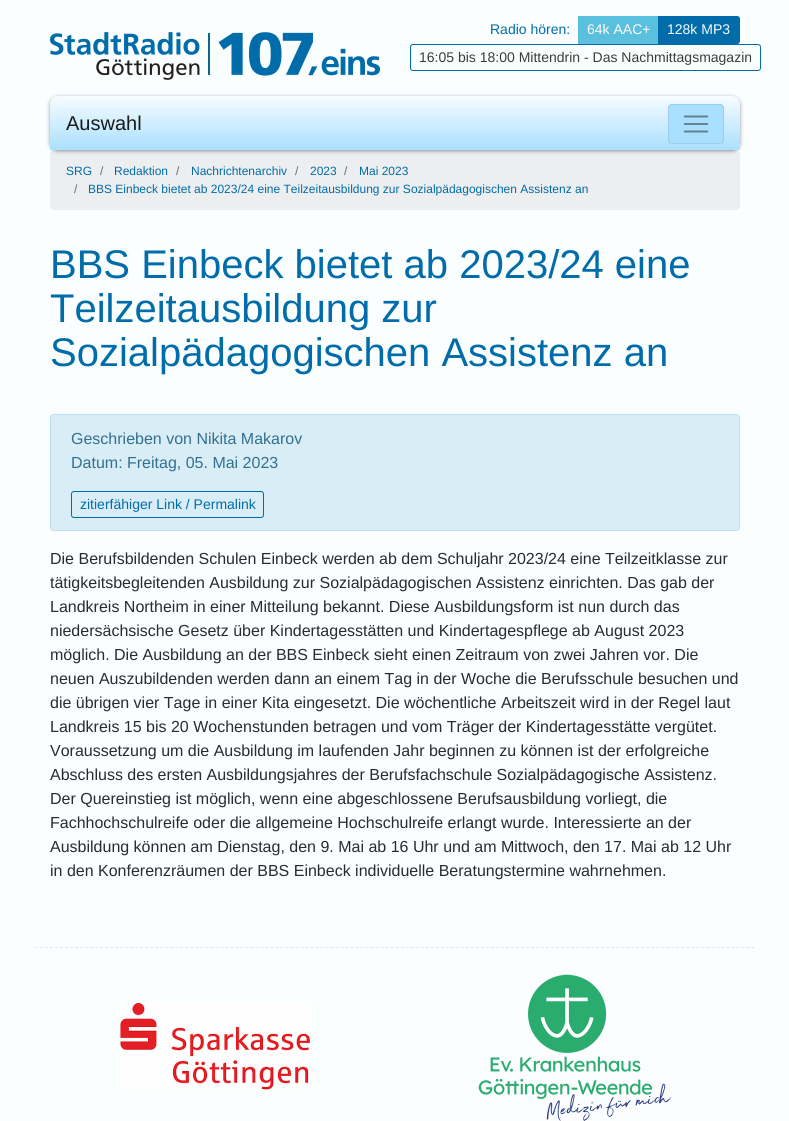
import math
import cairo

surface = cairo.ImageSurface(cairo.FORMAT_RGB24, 789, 1121)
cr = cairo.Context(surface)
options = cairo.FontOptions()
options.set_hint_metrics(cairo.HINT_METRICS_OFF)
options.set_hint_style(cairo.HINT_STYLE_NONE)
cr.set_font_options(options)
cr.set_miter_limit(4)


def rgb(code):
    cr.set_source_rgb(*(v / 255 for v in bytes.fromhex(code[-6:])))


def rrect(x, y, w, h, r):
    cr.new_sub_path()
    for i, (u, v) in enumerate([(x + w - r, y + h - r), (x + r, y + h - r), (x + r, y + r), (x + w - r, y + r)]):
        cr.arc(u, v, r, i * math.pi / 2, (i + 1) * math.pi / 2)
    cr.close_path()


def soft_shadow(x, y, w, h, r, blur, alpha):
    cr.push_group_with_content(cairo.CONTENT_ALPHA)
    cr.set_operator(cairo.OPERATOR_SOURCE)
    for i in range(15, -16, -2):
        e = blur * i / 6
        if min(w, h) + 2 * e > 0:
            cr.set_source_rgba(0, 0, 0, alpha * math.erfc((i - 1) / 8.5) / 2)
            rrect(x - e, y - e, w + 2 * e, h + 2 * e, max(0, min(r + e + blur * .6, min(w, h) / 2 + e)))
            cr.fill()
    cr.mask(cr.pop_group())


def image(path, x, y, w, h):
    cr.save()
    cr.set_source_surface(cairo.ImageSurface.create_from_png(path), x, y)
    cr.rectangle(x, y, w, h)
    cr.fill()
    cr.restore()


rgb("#fbfefe")
cr.paint()
image("img/1.png", 50, 32, 330, 48)
rgb("#5bc0de")
cr.rectangle(578, 16, 80, 28)
cr.fill()
rgb("#006caa")
cr.new_path()
cr.move_to(658.5, 16.5)
cr.line_to(737, 16.5)
cr.curve_to(738.5, 16.5, 739.5, 17.5, 739.5, 19)
cr.line_to(739.5, 41)
cr.curve_to(739.5, 42.5, 738.5, 43.5, 737, 43.5)
cr.line_to(658.5, 43.5)
cr.close_path()
cr.fill_preserve()
cr.set_line_width(1)
cr.stroke()
rrect(410.5, 44.5, 350, 26, 2.5)
cr.stroke()
rgb("#eceeef")
rrect(50, 150, 690, 60, 4)
cr.fill()
rgb("#293339")
soft_shadow(50, 97, 690, 54, 8, 2, 0.5)
gradient = cairo.LinearGradient(50, 96, 50, 150)
gradient.add_color_stop_rgba(0, 0.969, 0.988, 1, 1)
gradient.add_color_stop_rgba(1, 0.667, 0.878, 1, 1)
cr.set_source(gradient)
cr.new_path()
cr.move_to(58, 96)
cr.line_to(732, 96)
cr.curve_to(736.5, 96, 740, 99.5, 740, 104)
cr.line_to(740, 150)
cr.line_to(50, 150)
cr.line_to(50, 104)
cr.curve_to(50, 99.5, 53.5, 96, 58, 96)
cr.close_path()
cr.fill()
rgb("#aae0ff")
rrect(668, 104, 56, 40, 4)
cr.fill()
rrect(668.5, 104.5, 55, 39, 3.5)
cr.set_source_rgba(0.102, 0.102, 0.094, 0.1)
cr.stroke()
image("img/2.png", 683, 115, 26, 18)
rgb("#d9edf7")
rrect(50.5, 414.5, 689, 116, 3.5)
cr.fill_preserve()
rgb("#bcdff1")
cr.stroke()
rrect(71.5, 491.5, 192, 26, 2.5)
rgb("#006caa")
cr.stroke()
cr.new_path()
cr.move_to(35, 947.5)
cr.line_to(755, 947.5)
rgb("#e6e6e6")
cr.set_dash([3, 2.01])
cr.stroke()
image("img/3.png", 120, 1003, 190, 87)
image("img/4.png", 478, 974, 194, 147)
cr.select_font_face("Liberation Sans")
cr.set_font_size(14)
rgb("#006caa")
cr.move_to(490, 34)
cr.show_text("Radio hören:")
rgb("#fbfbfb")
cr.move_to(587, 34)
cr.show_text("64k AAC+")
cr.move_to(667, 34)
cr.show_text("128k MP3")
rgb("#3c3c3b")
cr.move_to(419, 62)
cr.show_text("16:05 bis 18:00 Mittendrin - Das Nachmittagsmagazin")
cr.set_font_size(20)
rgb("#1a1a18")
cr.move_to(66, 130)
cr.show_text("Auswahl")
cr.set_font_size(12)
rgb("#006caa")
cr.move_to(66, 175)
cr.show_text("SRG")
rgb("#636c72")
cr.move_to(100, 175)
cr.show_text("/")
rgb("#006caa")
cr.move_to(114, 175)
cr.show_text("Redaktion")
rgb("#636c72")
cr.move_to(176, 175)
cr.show_text("/")
rgb("#006caa")
cr.move_to(191, 175)
cr.show_text("Nachrichtenarchiv")
rgb("#636c72")
cr.move_to(295, 175)
cr.show_text("/")
rgb("#006caa")
cr.move_to(310, 175)
cr.show_text("2023")
rgb("#636c72")
cr.move_to(344, 175)
cr.show_text("/")
rgb("#006caa")
cr.move_to(359, 175)
cr.show_text("Mai 2023")
rgb("#636c72")
cr.move_to(74, 193)
cr.show_text("/")
rgb("#006caa")
cr.move_to(88, 193)
cr.show_text("BBS Einbeck bietet ab 2023/24 eine Teilzeitausbildung zur Sozialpädagogischen Assistenz an")
cr.set_font_size(40)
for x, y, s in [
    (50, 278, "BBS Einbeck bietet ab 2023/24 eine"),
    (50, 322, "Teilzeitausbildung zur"),
    (50, 366, "Sozialpädagogischen Assistenz an"),
]:
    cr.move_to(x, y)
    cr.show_text(s)
cr.set_font_size(16)
rgb("#31708f")
cr.move_to(71, 444)
cr.show_text("Geschrieben von Nikita Makarov")
cr.move_to(71, 468)
cr.show_text("Datum: Freitag, 05. Mai 2023")
cr.set_font_size(14)
rgb("#006caa")
cr.move_to(80, 509)
cr.show_text("zitierfähiger Link / Permalink")
cr.set_font_size(16)
rgb("#292b2c")
for x, y, s in [
    (50, 564, "Die Berufsbildenden Schulen Einbeck werden ab dem Schuljahr 2023/24 eine Teilzeitklasse zur"),
    (50, 588, "tätigkeitsbegleitenden Ausbildung zur Sozialpädagogischen Assistenz einrichten. Das gab der"),
    (50, 612, "Landkreis Northeim in einer Mitteilung bekannt. Diese Ausbildungsform ist nun durch das"),
    (50, 636, "niedersächsische Gesetz über Kindertagesstätten und Kindertagespflege ab August 2023"),
    (50, 660, "möglich. Die Ausbildung an der BBS Einbeck sieht einen Zeitraum von zwei Jahren vor. Die"),
    (50, 684, "neuen Auszubildenden werden dann an einem Tag in der Woche die Berufsschule besuchen und"),
    (50, 708, "die übrigen vier Tage in einer Kita eingesetzt. Die wöchentliche Arbeitszeit wird in der Regel laut"),
    (50, 732, "Landkreis 15 bis 20 Wochenstunden betragen und vom Träger der Kindertagesstätte vergütet."),
    (50, 756, "Voraussetzung um die Ausbildung im laufenden Jahr beginnen zu können ist der erfolgreiche"),
    (50, 780, "Abschluss des ersten Ausbildungsjahres der Berufsfachschule Sozialpädagogische Assistenz."),
    (50, 804, "Der Quereinstieg ist möglich, wenn eine abgeschlossene Berufsausbildung vorliegt, die"),
    (50, 828, "Fachhochschulreife oder die allgemeine Hochschulreife erlangt wurde. Interessierte an der"),
    (50, 852, "Ausbildung können am Dienstag, den 9. Mai ab 16 Uhr und am Mittwoch, den 17. Mai ab 12 Uhr"),
    (50, 876, "in den Konferenzräumen der BBS Einbeck individuelle Beratungstermine wahrnehmen."),
]:
    cr.move_to(x, y)
    cr.show_text(s)
surface.write_to_png("page.png")
